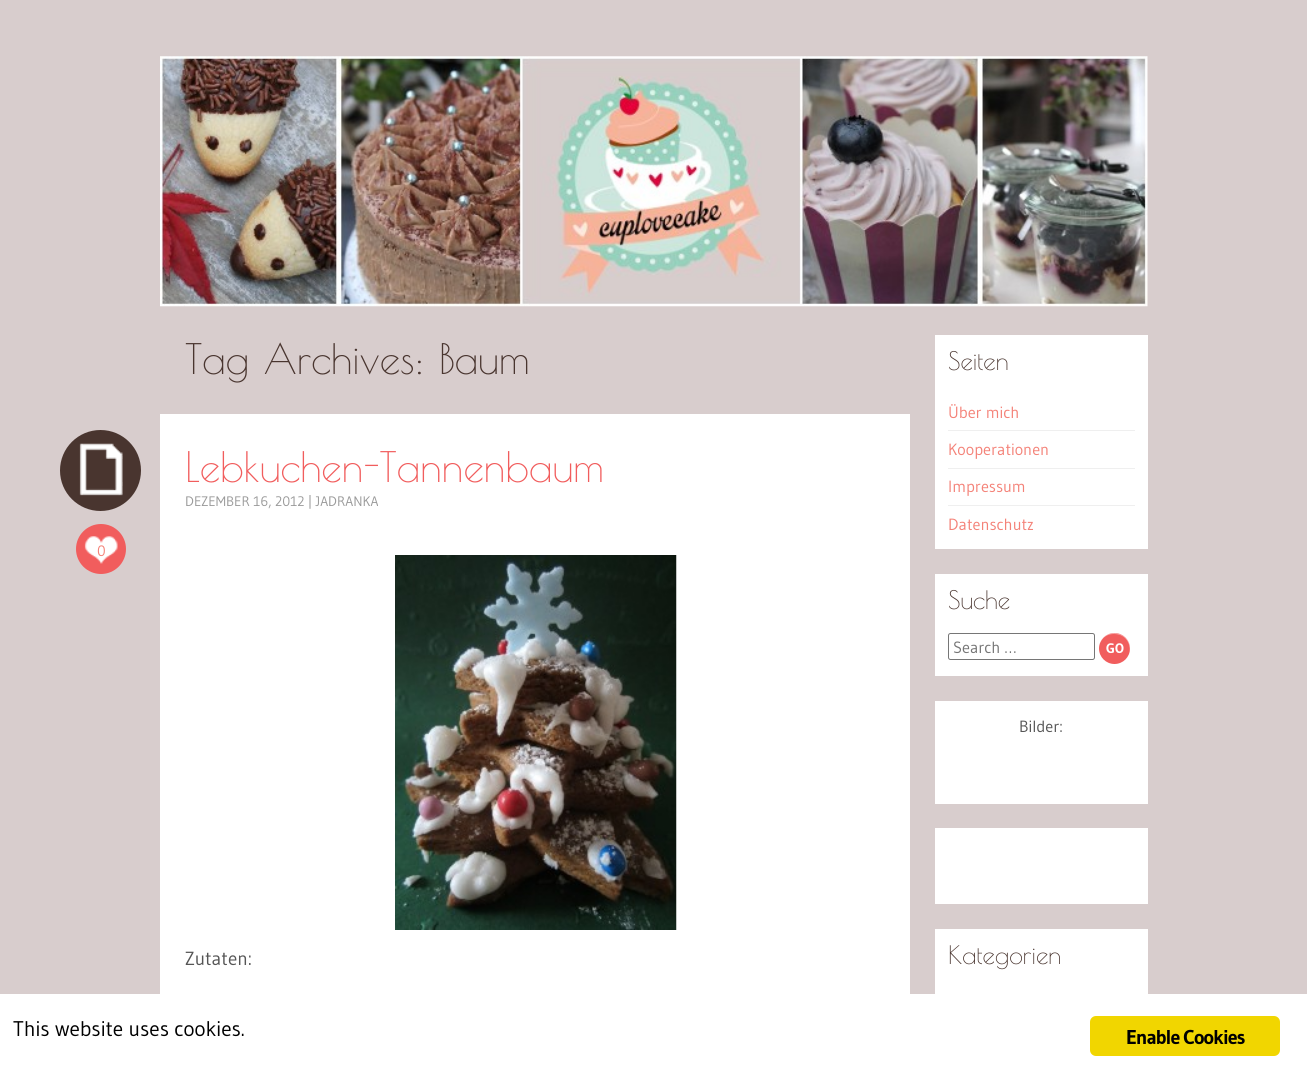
import math
import cairo

surface = cairo.ImageSurface(cairo.FORMAT_RGB24, 1307, 1076)
cr = cairo.Context(surface)
options = cairo.FontOptions()
options.set_hint_metrics(cairo.HINT_METRICS_OFF)
options.set_hint_style(cairo.HINT_STYLE_NONE)
cr.set_font_options(options)
cr.set_miter_limit(4)


def rgb(code):
    cr.set_source_rgb(*(v / 255 for v in bytes.fromhex(code[-6:])))


def tracked(x, y, s, letter, word):
    cr.move_to(x, y)
    for ch in s:
        cr.show_text(ch)
        cr.rel_move_to(letter + word * (ch == ' '), 0)


def rrect(x, y, w, h, r):
    cr.new_sub_path()
    for i, (u, v) in enumerate([(x + w - r, y + h - r), (x + r, y + h - r), (x + r, y + r), (x + w - r, y + r)]):
        cr.arc(u, v, r, i * math.pi / 2, (i + 1) * math.pi / 2)
    cr.close_path()


def image(path, x, y, w, h):
    cr.save()
    cr.set_source_surface(cairo.ImageSurface.create_from_png(path), x, y)
    cr.rectangle(x, y, w, h)
    cr.fill()
    cr.restore()


rgb("#d8cdcd")
cr.paint()
image("img/1.png", 160, 56, 988, 251)
rgb("#ffffff")
cr.rectangle(160, 414, 750, 580)
cr.fill()
rgb("#49352f")
cr.arc(100.5, 470.5, 40.5, 0, 2 * math.pi)
cr.fill()
image("img/2.png", 79, 443, 44, 53)
rgb("#f15d5d")
cr.arc(101, 549, 25, 0, 2 * math.pi)
cr.fill()
image("img/3.png", 84, 536, 34, 28)
image("img/4.png", 395, 555, 282, 375)
for x, y, w, h, color in [
    (935, 335, 213, 214, "#ffffff"),
    (948, 430, 187, 1, "#efefef"),
    (948, 468, 187, 1, "#efefef"),
    (948, 505, 187, 1, "#efefef"),
    (935, 574, 213, 102, "#ffffff"),
]:
    rgb(color)
    cr.rectangle(x, y, w, h)
    cr.fill()
rrect(948.5, 633.5, 146, 26, 2)
rgb("#767676")
cr.set_line_width(1)
cr.stroke()
rgb("#f15d5d")
cr.arc(1114.5, 648.5, 15.5, 0, 2 * math.pi)
cr.fill()
cr.set_source_rgba(1, 1, 1, 0.5)
cr.new_path()
cr.move_to(1114, 634)
cr.curve_to(1126, 634, 1131, 644, 1129.5, 652.5)
cr.curve_to(1134, 636, 1111.5, 625.5, 1101.5, 640)
cr.curve_to(1100, 642.5, 1099, 645.5, 1099, 649)
cr.curve_to(1099, 641.5, 1104, 634, 1114, 634)
cr.close_path()
cr.fill()
for x, y, w, h, color in [
    (935, 701, 213, 103, "#ffffff"),
    (935, 828, 213, 76, "#ffffff"),
    (935, 929, 213, 65, "#ffffff"),
    (0, 994, 1307, 82, "#ffffff"),
]:
    rgb(color)
    cr.rectangle(x, y, w, h)
    cr.fill()
rgb("#f1d600")
rrect(1090, 1016, 190, 40, 6)
cr.fill()
cr.select_font_face("Poiret One")
cr.set_font_size(41.25)
rgb("#49352f")
cr.move_to(185, 374)
cr.show_text("Tag Archives: Baum")
rgb("#f15d5d")
cr.move_to(185, 482)
cr.show_text("Lebkuchen-Tannenbaum")
cr.select_font_face("Gudea")
cr.set_font_size(13.75)
rgb("#999999")
cr.move_to(185, 506)
cr.show_text("DEZEMBER 16, 2012 | JADRANKA")
cr.set_font_size(15)
rgb("#f48278")
cr.move_to(97, 556)
cr.show_text("0")
cr.set_font_size(19)
rgb("#555555")
cr.move_to(185, 965)
cr.show_text("Zutaten:")
cr.select_font_face("Poiret One")
cr.set_font_size(25)
rgb("#49352f")
cr.move_to(948, 370)
cr.show_text("Seiten")
cr.select_font_face("Gudea")
cr.set_font_size(16.25)
rgb("#f48278")
for x, y, s in [
    (948, 418, "Über mich"),
    (948, 455, "Kooperationen"),
    (948, 492, "Impressum"),
    (948, 530, "Datenschutz"),
]:
    cr.move_to(x, y)
    cr.show_text(s)
cr.select_font_face("Poiret One")
cr.set_font_size(25)
rgb("#49352f")
cr.move_to(948, 609)
cr.show_text("Suche")
cr.select_font_face("Gudea")
cr.set_font_size(16.25)
rgb("#757575")
cr.move_to(953, 653)
cr.show_text("Search …")
cr.select_font_face("Gudea", cairo.FONT_SLANT_NORMAL, cairo.FONT_WEIGHT_BOLD)
cr.set_font_size(13.75)
rgb("#ffffff")
cr.move_to(1106, 653)
cr.show_text("GO")
cr.select_font_face("Gudea")
cr.set_font_size(16.25)
rgb("#555555")
cr.move_to(1019, 732)
cr.show_text("Bilder:")
cr.select_font_face("Poiret One")
cr.set_font_size(25)
rgb("#49352f")
cr.move_to(948, 964)
cr.show_text("Kategorien")
cr.select_font_face("Gudea")
cr.set_font_size(21.25)
rgb("#000000")
cr.move_to(13, 1036)
cr.show_text("This website uses cookies.")
cr.select_font_face("Gudea", cairo.FONT_SLANT_NORMAL, cairo.FONT_WEIGHT_BOLD)
cr.set_font_size(20)
tracked(1126, 1044, "Enable Cookies", -1, 0)
surface.write_to_png("page.png")
